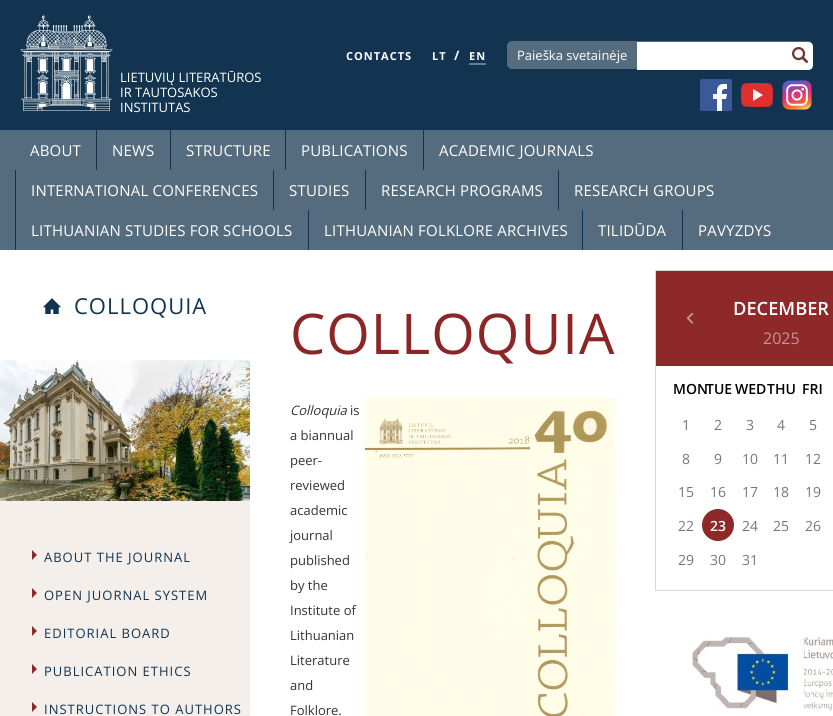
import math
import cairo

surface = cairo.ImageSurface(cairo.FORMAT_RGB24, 833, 716)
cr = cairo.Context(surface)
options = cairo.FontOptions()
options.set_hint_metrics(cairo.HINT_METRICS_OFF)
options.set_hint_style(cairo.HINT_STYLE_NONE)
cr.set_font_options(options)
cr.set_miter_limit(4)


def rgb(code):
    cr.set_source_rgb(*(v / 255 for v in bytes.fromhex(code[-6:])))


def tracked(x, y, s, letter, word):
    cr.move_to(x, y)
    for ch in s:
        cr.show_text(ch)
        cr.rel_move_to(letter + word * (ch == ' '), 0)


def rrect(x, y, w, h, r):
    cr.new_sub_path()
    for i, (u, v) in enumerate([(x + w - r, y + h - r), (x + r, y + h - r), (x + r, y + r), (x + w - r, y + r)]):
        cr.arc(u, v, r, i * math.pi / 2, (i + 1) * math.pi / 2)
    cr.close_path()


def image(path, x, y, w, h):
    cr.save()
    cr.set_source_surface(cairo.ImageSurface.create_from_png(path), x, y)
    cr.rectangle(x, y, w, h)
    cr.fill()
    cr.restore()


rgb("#123450")
cr.paint()
image("img/1.png", 20, 15, 93, 96)
rgb("#6d7a88")
cr.rectangle(469, 63, 17, 2)
cr.fill()
rgb("#556b7e")
rrect(507, 41, 306, 28, 5)
cr.fill()
rgb("#ffffff")
cr.new_path()
cr.move_to(637, 42)
cr.line_to(808, 42)
cr.curve_to(811, 42, 813, 44, 813, 47)
cr.line_to(813, 65)
cr.curve_to(813, 68, 811, 70, 808, 70)
cr.line_to(637, 70)
cr.close_path()
cr.fill()
image("img/2.png", 792, 47, 16, 16)
image("img/3.png", 700, 79, 32, 32)
image("img/4.png", 741, 83, 32, 24)
image("img/5.png", 782, 80, 30, 30)
for x, y, w, h, color in [
    (0, 130, 833, 120, "#556b7e"),
    (96, 130, 1, 40, "#123350"),
    (170, 130, 1, 40, "#123350"),
    (285, 130, 1, 40, "#123350"),
    (423, 130, 1, 40, "#123350"),
    (15, 170, 1, 80, "#123350"),
    (273, 170, 1, 40, "#123350"),
    (365, 170, 1, 40, "#123350"),
    (558, 170, 1, 40, "#123350"),
    (308, 210, 1, 40, "#123350"),
    (582, 210, 1, 40, "#123350"),
    (682, 210, 1, 40, "#123350"),
    (250, 250, 583, 466, "#ffffff"),
    (0, 501, 250, 215, "#f4efea"),
    (0, 250, 250, 110, "#ffffff"),
]:
    rgb(color)
    cr.rectangle(x, y, w, h)
    cr.fill()
image("img/6.png", 43, 298, 18, 16)
image("img/7.png", 0, 360, 250, 141)
image("img/8.png", 32, 550, 5, 10)
image("img/8.png", 32, 588, 5, 10)
image("img/8.png", 32, 626, 5, 10)
image("img/8.png", 32, 664, 5, 10)
image("img/8.png", 32, 702, 5, 10)
image("img/9.png", 365, 397, 250, 319)
cr.rectangle(655.5, 270.5, 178, 320)
rgb("#d8d8d8")
cr.set_line_width(1)
cr.stroke()
rgb("#8d2929")
cr.rectangle(656, 271, 177, 95)
cr.fill()
image("img/10.png", 686, 312, 8, 12)
cr.arc(718, 525, 16, 0, 2 * math.pi)
cr.fill()
image("img/11.png", 692, 637, 141, 74)
cr.select_font_face("Open Sans", cairo.FONT_SLANT_NORMAL, cairo.FONT_WEIGHT_BOLD)
cr.set_font_size(11)
rgb("#ffffff")
tracked(346, 60, "CONTACTS", 1, 0)
tracked(432, 60, "LT", 1, 0)
cr.set_font_size(13)
cr.move_to(454, 60)
cr.show_text("/")
cr.set_font_size(11)
tracked(469, 60, "EN", 1, 0)
cr.select_font_face("Open Sans")
cr.set_font_size(13)
for x, y, s in [
    (517, 60, "Paieška svetainėje"),
    (120, 82, "LIETUVIŲ LITERATŪROS"),
    (120, 97, "IR TAUTOSAKOS"),
    (120, 112, "INSTITUTAS"),
]:
    cr.move_to(x, y)
    cr.show_text(s)
cr.set_font_size(15)
for x, y, s in [
    (30, 156, "ABOUT"),
    (112, 156, "NEWS"),
    (186, 156, "STRUCTURE"),
    (301, 156, "PUBLICATIONS"),
    (439, 156, "ACADEMIC JOURNALS"),
    (31, 196, "INTERNATIONAL CONFERENCES"),
    (289, 196, "STUDIES"),
    (381, 196, "RESEARCH PROGRAMS"),
    (574, 196, "RESEARCH GROUPS"),
    (31, 236, "LITHUANIAN STUDIES FOR SCHOOLS"),
    (324, 236, "LITHUANIAN FOLKLORE ARCHIVES"),
    (598, 236, "TILIDŪDA"),
    (698, 236, "PAVYZDYS"),
]:
    tracked(x, y, s, 0.2, 0)
cr.set_font_size(22)
rgb("#123350")
tracked(74, 314, "COLLOQUIA", 1, 0)
cr.set_font_size(13)
for x, y, s in [
    (44, 562, "ABOUT THE JOURNAL"),
    (44, 600, "OPEN JUORNAL SYSTEM"),
    (44, 638, "EDITORIAL BOARD"),
    (44, 676, "PUBLICATION ETHICS"),
    (44, 714, "INSTRUCTIONS TO AUTHORS"),
]:
    tracked(x, y, s, 1, 0)
cr.set_font_size(56)
rgb("#8c2626")
tracked(290, 354, "COLLOQUIA", 1, 0)
cr.select_font_face("Open Sans", cairo.FONT_SLANT_ITALIC)
cr.set_font_size(13)
rgb("#333333")
cr.move_to(290, 415)
cr.show_text("Colloquia")
cr.select_font_face("Open Sans")
for x, y, s in [
    (350, 415, "is"),
    (290, 440, "a biannual"),
    (290, 465, "peer-"),
    (290, 490, "reviewed"),
    (290, 515, "academic"),
    (290, 540, "journal"),
    (290, 565, "published"),
    (290, 590, "by the"),
    (290, 615, "Institute of"),
    (290, 640, "Lithuanian"),
    (290, 665, "Literature"),
    (290, 690, "and"),
    (290, 715, "Folklore."),
]:
    cr.move_to(x, y)
    cr.show_text(s)
cr.select_font_face("Open Sans SemiBold")
cr.set_font_size(18.25)
rgb("#ffffff")
cr.move_to(733, 315)
cr.show_text("DECEMBER")
cr.select_font_face("Open Sans")
cr.set_font_size(16)
rgb("#c69494")
cr.move_to(763, 344)
cr.show_text("2025")
cr.select_font_face("Open Sans SemiBold")
cr.set_font_size(14)
rgb("#000000")
for x, y, s in [
    (673, 394, "MON"),
    (706, 394, "TUE"),
    (735, 394, "WED"),
    (767, 394, "THU"),
    (802, 394, "FRI"),
]:
    cr.move_to(x, y)
    cr.show_text(s)
cr.select_font_face("Open Sans")
rgb("#777777")
for x, y, s in [
    (682, 430, "1"),
    (714, 430, "2"),
    (746, 430, "3"),
    (777, 430, "4"),
    (809, 430, "5"),
    (682, 464, "8"),
    (714, 464, "9"),
    (742, 464, "10"),
    (773, 464, "11"),
    (805, 464, "12"),
    (678, 497, "15"),
    (710, 497, "16"),
    (742, 497, "17"),
    (773, 497, "18"),
    (805, 497, "19"),
    (678, 531, "22"),
]:
    cr.move_to(x, y)
    cr.show_text(s)
cr.select_font_face("Open Sans SemiBold")
rgb("#ffffff")
cr.move_to(710, 531)
cr.show_text("23")
cr.select_font_face("Open Sans")
rgb("#777777")
for x, y, s in [
    (742, 531, "24"),
    (773, 531, "25"),
    (805, 531, "26"),
    (678, 565, "29"),
    (710, 565, "30"),
    (742, 565, "31"),
]:
    cr.move_to(x, y)
    cr.show_text(s)
surface.write_to_png("page.png")
